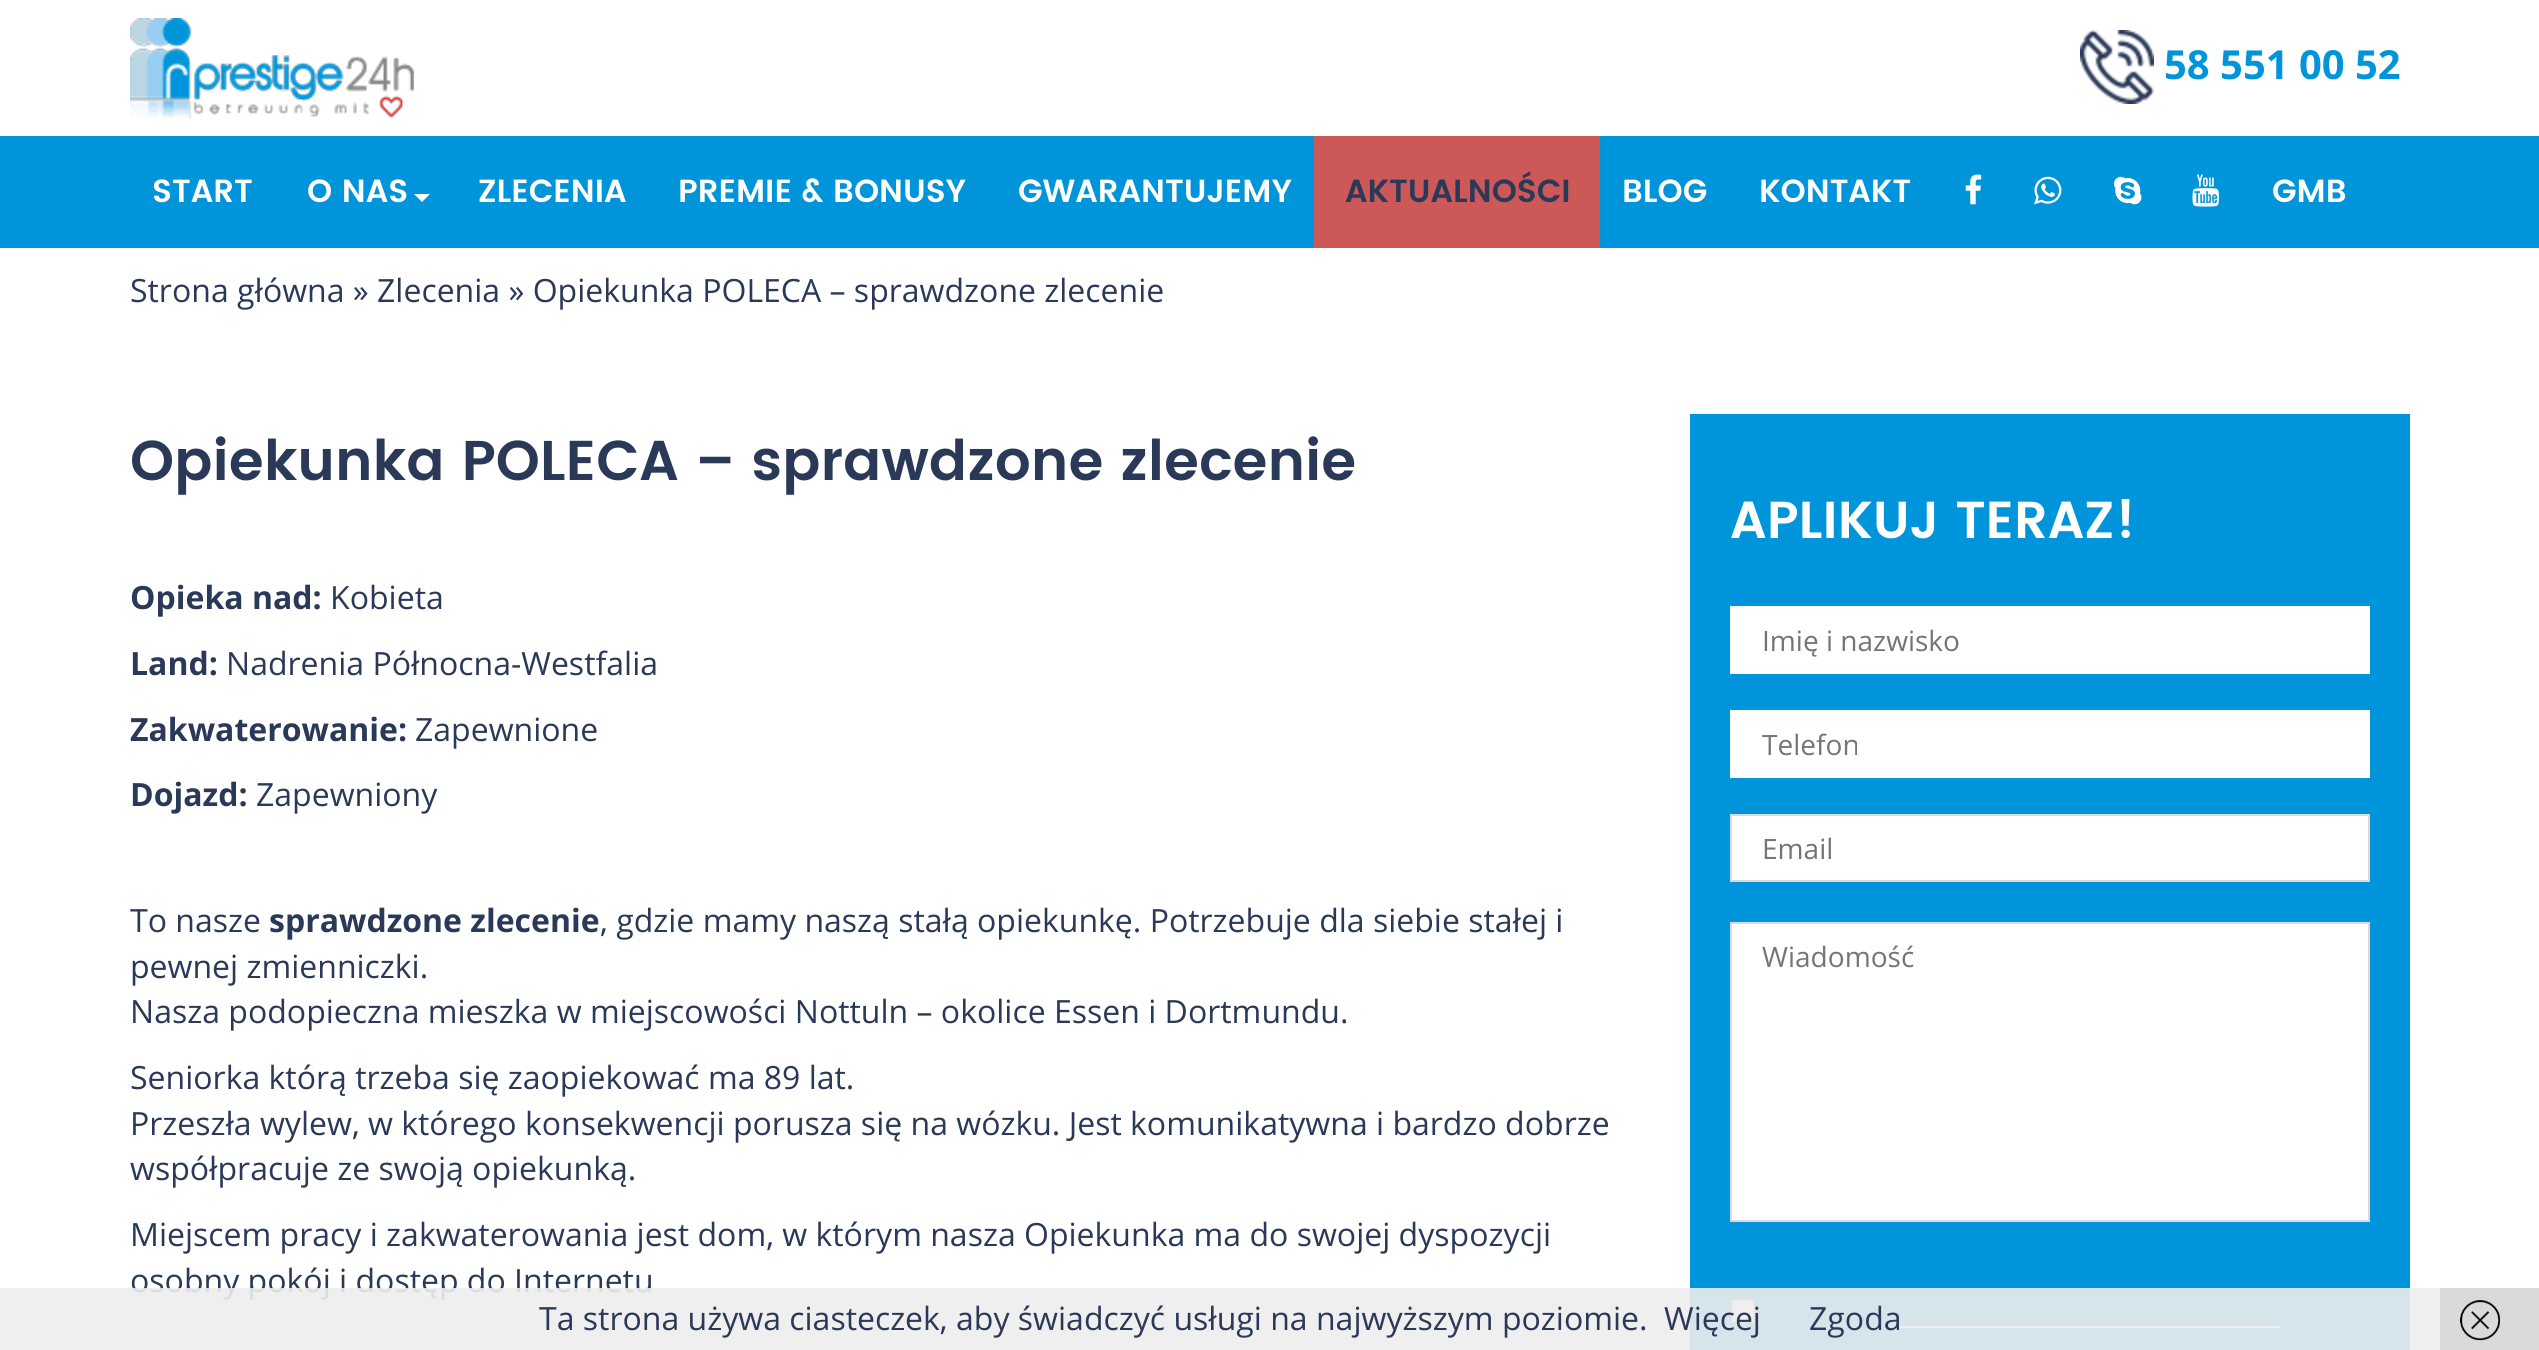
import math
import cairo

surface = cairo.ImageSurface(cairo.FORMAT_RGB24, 2539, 1350)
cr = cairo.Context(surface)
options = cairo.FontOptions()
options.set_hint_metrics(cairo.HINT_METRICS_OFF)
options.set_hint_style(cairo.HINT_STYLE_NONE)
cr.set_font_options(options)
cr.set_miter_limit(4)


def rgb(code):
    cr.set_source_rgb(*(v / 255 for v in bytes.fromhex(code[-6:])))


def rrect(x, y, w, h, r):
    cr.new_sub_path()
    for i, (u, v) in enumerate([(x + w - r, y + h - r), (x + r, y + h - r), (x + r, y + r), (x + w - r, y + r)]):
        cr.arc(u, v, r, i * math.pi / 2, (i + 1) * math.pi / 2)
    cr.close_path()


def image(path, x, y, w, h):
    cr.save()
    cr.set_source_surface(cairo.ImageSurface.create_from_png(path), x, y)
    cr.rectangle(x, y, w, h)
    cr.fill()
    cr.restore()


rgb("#ffffff")
cr.paint()
image("img/1.png", 130, 18, 284, 100)
image("img/2.png", 2080, 30, 74, 74)
rgb("#0095da")
cr.rectangle(0, 136, 2539, 112)
cr.fill()
rgb("#ffffff")
cr.new_path()
cr.move_to(414, 194)
cr.line_to(430, 194)
cr.line_to(422, 202)
cr.close_path()
cr.fill()
rgb("#cc5858")
cr.rectangle(1314, 136, 286, 112)
cr.fill()
image("img/3.png", 1965, 174, 17, 31)
image("img/4.png", 2034, 176, 28, 29)
image("img/5.png", 2114, 176, 28, 29)
image("img/6.png", 2192, 174, 27, 33)
for x, y, w, h, color in [
    (1690, 414, 720, 936, "#0095da"),
    (1730, 606, 640, 68, "#ffffff"),
    (1730, 710, 640, 68, "#ffffff"),
]:
    rgb(color)
    cr.rectangle(x, y, w, h)
    cr.fill()
cr.rectangle(1731, 815, 638, 66)
cr.fill_preserve()
rgb("#dadada")
cr.stroke()
rgb("#ffffff")
cr.rectangle(1731, 923, 638, 298)
cr.fill_preserve()
rgb("#dadada")
cr.stroke()
rgb("#ffffff")
rrect(1731, 1299, 24, 24, 3)
cr.fill_preserve()
rgb("#767676")
cr.stroke()
rgb("#ffffff")
cr.rectangle(1900, 1326, 380, 2)
cr.fill()
rgb("#dadada")
cr.rectangle(2440, 1288, 99, 62)
cr.fill()
image("img/7.png", 2460, 1300, 40, 41)
cr.select_font_face("Open Sans", cairo.FONT_SLANT_NORMAL, cairo.FONT_WEIGHT_BOLD)
cr.set_font_size(40)
rgb("#0095da")
cr.move_to(2164, 79)
cr.show_text("58 551 00 52")
cr.select_font_face("Poppins SemiBold")
cr.set_font_size(32)
rgb("#ffffff")
for x, y, s in [
    (152, 202, "START"),
    (307, 202, "O NAS"),
    (478, 202, "ZLECENIA"),
    (678, 202, "PREMIE & BONUSY"),
    (1018, 202, "GWARANTUJEMY"),
]:
    cr.move_to(x, y)
    cr.show_text(s)
rgb("#2a3958")
cr.move_to(1345, 202)
cr.show_text("AKTUALNOŚCI")
rgb("#ffffff")
for x, y, s in [
    (1622, 202, "BLOG"),
    (1759, 202, "KONTAKT"),
    (2272, 202, "GMB"),
]:
    cr.move_to(x, y)
    cr.show_text(s)
cr.select_font_face("Open Sans")
rgb("#2a3958")
cr.move_to(130, 302)
cr.show_text("Strona główna » Zlecenia » Opiekunka POLECA – sprawdzone zlecenie")
cr.select_font_face("Poppins SemiBold")
cr.set_font_size(56)
cr.move_to(130, 480)
cr.show_text("Opiekunka POLECA – sprawdzone zlecenie")
cr.select_font_face("Open Sans", cairo.FONT_SLANT_NORMAL, cairo.FONT_WEIGHT_BOLD)
cr.set_font_size(32)
cr.move_to(130, 609)
cr.show_text("Opieka nad:")
cr.select_font_face("Open Sans")
cr.move_to(330, 609)
cr.show_text("Kobieta")
cr.select_font_face("Open Sans", cairo.FONT_SLANT_NORMAL, cairo.FONT_WEIGHT_BOLD)
cr.move_to(130, 675)
cr.show_text("Land:")
cr.select_font_face("Open Sans")
cr.move_to(226, 675)
cr.show_text("Nadrenia Północna-Westfalia")
cr.select_font_face("Open Sans", cairo.FONT_SLANT_NORMAL, cairo.FONT_WEIGHT_BOLD)
cr.move_to(130, 741)
cr.show_text("Zakwaterowanie:")
cr.select_font_face("Open Sans")
cr.move_to(415, 741)
cr.show_text("Zapewnione")
cr.select_font_face("Open Sans", cairo.FONT_SLANT_NORMAL, cairo.FONT_WEIGHT_BOLD)
cr.move_to(130, 806)
cr.show_text("Dojazd:")
cr.select_font_face("Open Sans")
cr.move_to(256, 806)
cr.show_text("Zapewniony")
cr.move_to(130, 932)
cr.show_text("To nasze")
cr.select_font_face("Open Sans", cairo.FONT_SLANT_NORMAL, cairo.FONT_WEIGHT_BOLD)
cr.move_to(269, 932)
cr.show_text("sprawdzone zlecenie")
cr.select_font_face("Open Sans")
for x, y, s in [
    (600, 932, ", gdzie mamy naszą stałą opiekunkę. Potrzebuje dla siebie stałej i"),
    (130, 978, "pewnej zmienniczki."),
    (130, 1023, "Nasza podopieczna mieszka w miejscowości Nottuln – okolice Essen i Dortmundu."),
    (130, 1089, "Seniorka którą trzeba się zaopiekować ma 89 lat."),
    (130, 1135, "Przeszła wylew, w którego konsekwencji porusza się na wózku. Jest komunikatywna i bardzo dobrze"),
    (130, 1180, "współpracuje ze swoją opiekunką."),
    (130, 1246, "Miejscem pracy i zakwaterowania jest dom, w którym nasza Opiekunka ma do swojej dyspozycji"),
    (130, 1292, "osobny pokój i dostęp do Internetu"),
]:
    cr.move_to(x, y)
    cr.show_text(s)
cr.select_font_face("Poppins SemiBold")
cr.set_font_size(52)
rgb("#ffffff")
cr.move_to(1730, 538)
cr.show_text("APLIKUJ TERAZ!")
cr.select_font_face("Open Sans")
cr.set_font_size(28)
rgb("#757575")
for x, y, s in [
    (1762, 651, "Imię i nazwisko"),
    (1762, 755, "Telefon"),
    (1762, 859, "Email"),
    (1762, 967, "Wiadomość"),
]:
    cr.move_to(x, y)
    cr.show_text(s)
cr.set_source_rgba(0.933, 0.933, 0.933, 0.9)
cr.rectangle(0, 1288, 2440, 62)
cr.fill()
cr.set_font_size(32)
rgb("#2a3958")
for x, y, s in [
    (539, 1330, "Ta strona używa ciasteczek, aby świadczyć usługi na najwyższym poziomie."),
    (1664, 1330, "Więcej"),
    (1809, 1330, "Zgoda"),
]:
    cr.move_to(x, y)
    cr.show_text(s)
surface.write_to_png("page.png")
